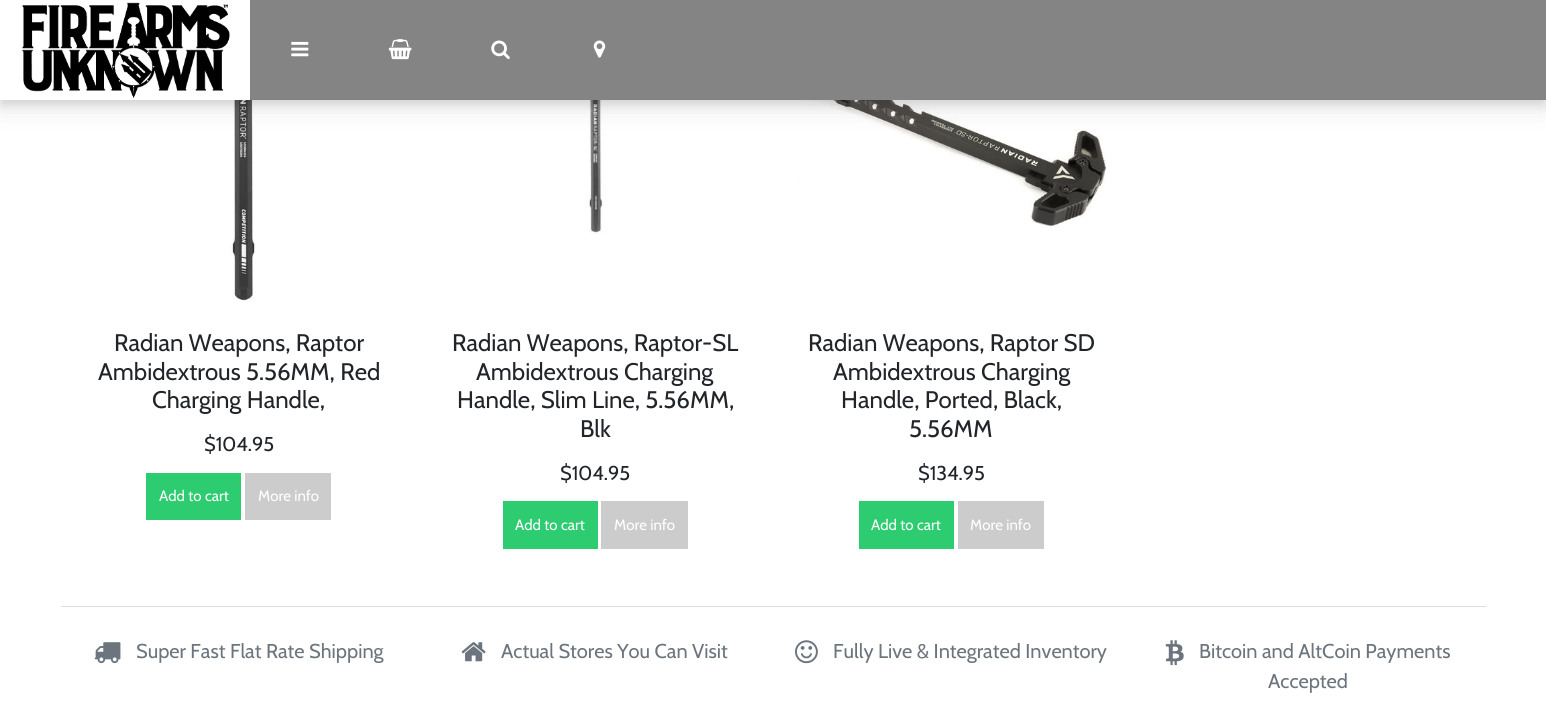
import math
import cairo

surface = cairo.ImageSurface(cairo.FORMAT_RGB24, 1546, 728)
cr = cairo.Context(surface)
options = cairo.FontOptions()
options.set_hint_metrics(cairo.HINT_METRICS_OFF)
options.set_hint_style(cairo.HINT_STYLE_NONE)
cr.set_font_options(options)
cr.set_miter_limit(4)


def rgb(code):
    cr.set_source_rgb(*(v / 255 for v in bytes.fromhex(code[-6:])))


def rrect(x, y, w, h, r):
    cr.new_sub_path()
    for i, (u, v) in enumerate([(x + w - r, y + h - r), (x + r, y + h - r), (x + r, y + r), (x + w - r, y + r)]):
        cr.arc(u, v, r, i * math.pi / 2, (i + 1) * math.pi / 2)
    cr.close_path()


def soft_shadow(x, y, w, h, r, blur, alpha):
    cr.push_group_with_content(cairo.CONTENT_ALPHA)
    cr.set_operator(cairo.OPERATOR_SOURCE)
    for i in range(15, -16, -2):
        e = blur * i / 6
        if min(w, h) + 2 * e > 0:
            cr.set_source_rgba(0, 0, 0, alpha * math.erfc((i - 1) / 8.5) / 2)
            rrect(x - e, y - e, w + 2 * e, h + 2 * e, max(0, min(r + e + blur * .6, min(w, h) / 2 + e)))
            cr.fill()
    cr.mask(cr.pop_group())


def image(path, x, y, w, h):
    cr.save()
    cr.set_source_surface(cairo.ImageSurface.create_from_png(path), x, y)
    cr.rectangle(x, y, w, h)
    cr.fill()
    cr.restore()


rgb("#ffffff")
cr.paint()
image("img/6.png", 183, 100, 117, 202)
image("img/7.png", 567, 100, 56, 134)
image("img/8.png", 798, 100, 309, 128)
rgb("#000000")
soft_shadow(0, 8, 1546, 100, 0, 12.5, 0.1)
soft_shadow(0, 5, 1546, 100, 0, 5, 0.1)
rgb("#848484")
cr.rectangle(250, 0, 1296, 100)
cr.fill()
rgb("#ffffff")
cr.rectangle(0, 0, 250, 100)
cr.fill()
image("img/1.png", 22, 2, 208, 96)
image("img/2.png", 291, 41, 18, 16)
image("img/3.png", 388, 39, 24, 21)
image("img/4.png", 491, 40, 19, 20)
image("img/5.png", 593, 40, 13, 18)
for x, y, w, h, color in [
    (146, 473, 95, 47, "#2ecc71"),
    (245, 473, 86, 47, "#cccccc"),
    (503, 501, 95, 48, "#2ecc71"),
    (601, 501, 87, 48, "#cccccc"),
    (859, 501, 95, 48, "#2ecc71"),
    (958, 501, 86, 48, "#cccccc"),
    (61, 606, 1425, 1, "#dedede"),
]:
    rgb(color)
    cr.rectangle(x, y, w, h)
    cr.fill()
image("img/9.png", 94, 642, 27, 22)
image("img/10.png", 461, 642, 25, 20)
image("img/11.png", 795, 640, 23, 24)
image("img/12.png", 1165, 640, 19, 26)
cr.select_font_face("Cabin")
cr.set_font_size(24)
rgb("#212529")
for x, y, s in [
    (114, 351, "Radian Weapons, Raptor"),
    (98, 380, "Ambidextrous 5.56MM, Red"),
    (152, 408, "Charging Handle,"),
]:
    cr.move_to(x, y)
    cr.show_text(s)
cr.set_font_size(20)
cr.move_to(204, 451)
cr.show_text("$104.95")
cr.set_font_size(15)
rgb("#ffffff")
cr.move_to(159, 501)
cr.show_text("Add to cart")
cr.move_to(258, 501)
cr.show_text("More info")
cr.set_font_size(24)
rgb("#212529")
for x, y, s in [
    (452, 351, "Radian Weapons, Raptor-SL"),
    (476, 380, "Ambidextrous Charging"),
    (457, 408, "Handle, Slim Line, 5.56MM,"),
    (580, 437, "Blk"),
]:
    cr.move_to(x, y)
    cr.show_text(s)
cr.set_font_size(20)
cr.move_to(560, 480)
cr.show_text("$104.95")
cr.set_font_size(15)
rgb("#ffffff")
cr.move_to(515, 530)
cr.show_text("Add to cart")
cr.move_to(614, 530)
cr.show_text("More info")
cr.set_font_size(24)
rgb("#212529")
for x, y, s in [
    (808, 351, "Radian Weapons, Raptor SD"),
    (833, 380, "Ambidextrous Charging"),
    (841, 408, "Handle, Ported, Black,"),
    (909, 437, "5.56MM"),
]:
    cr.move_to(x, y)
    cr.show_text(s)
cr.set_font_size(20)
cr.move_to(918, 480)
cr.show_text("$134.95")
cr.set_font_size(15)
rgb("#ffffff")
cr.move_to(871, 530)
cr.show_text("Add to cart")
cr.move_to(970, 530)
cr.show_text("More info")
cr.set_font_size(20)
rgb("#6c757d")
for x, y, s in [
    (136, 658, "Super Fast Flat Rate Shipping"),
    (501, 658, "Actual Stores You Can Visit"),
    (833, 658, "Fully Live & Integrated Inventory"),
    (1199, 658, "Bitcoin and AltCoin Payments"),
    (1268, 688, "Accepted"),
]:
    cr.move_to(x, y)
    cr.show_text(s)
surface.write_to_png("page.png")
